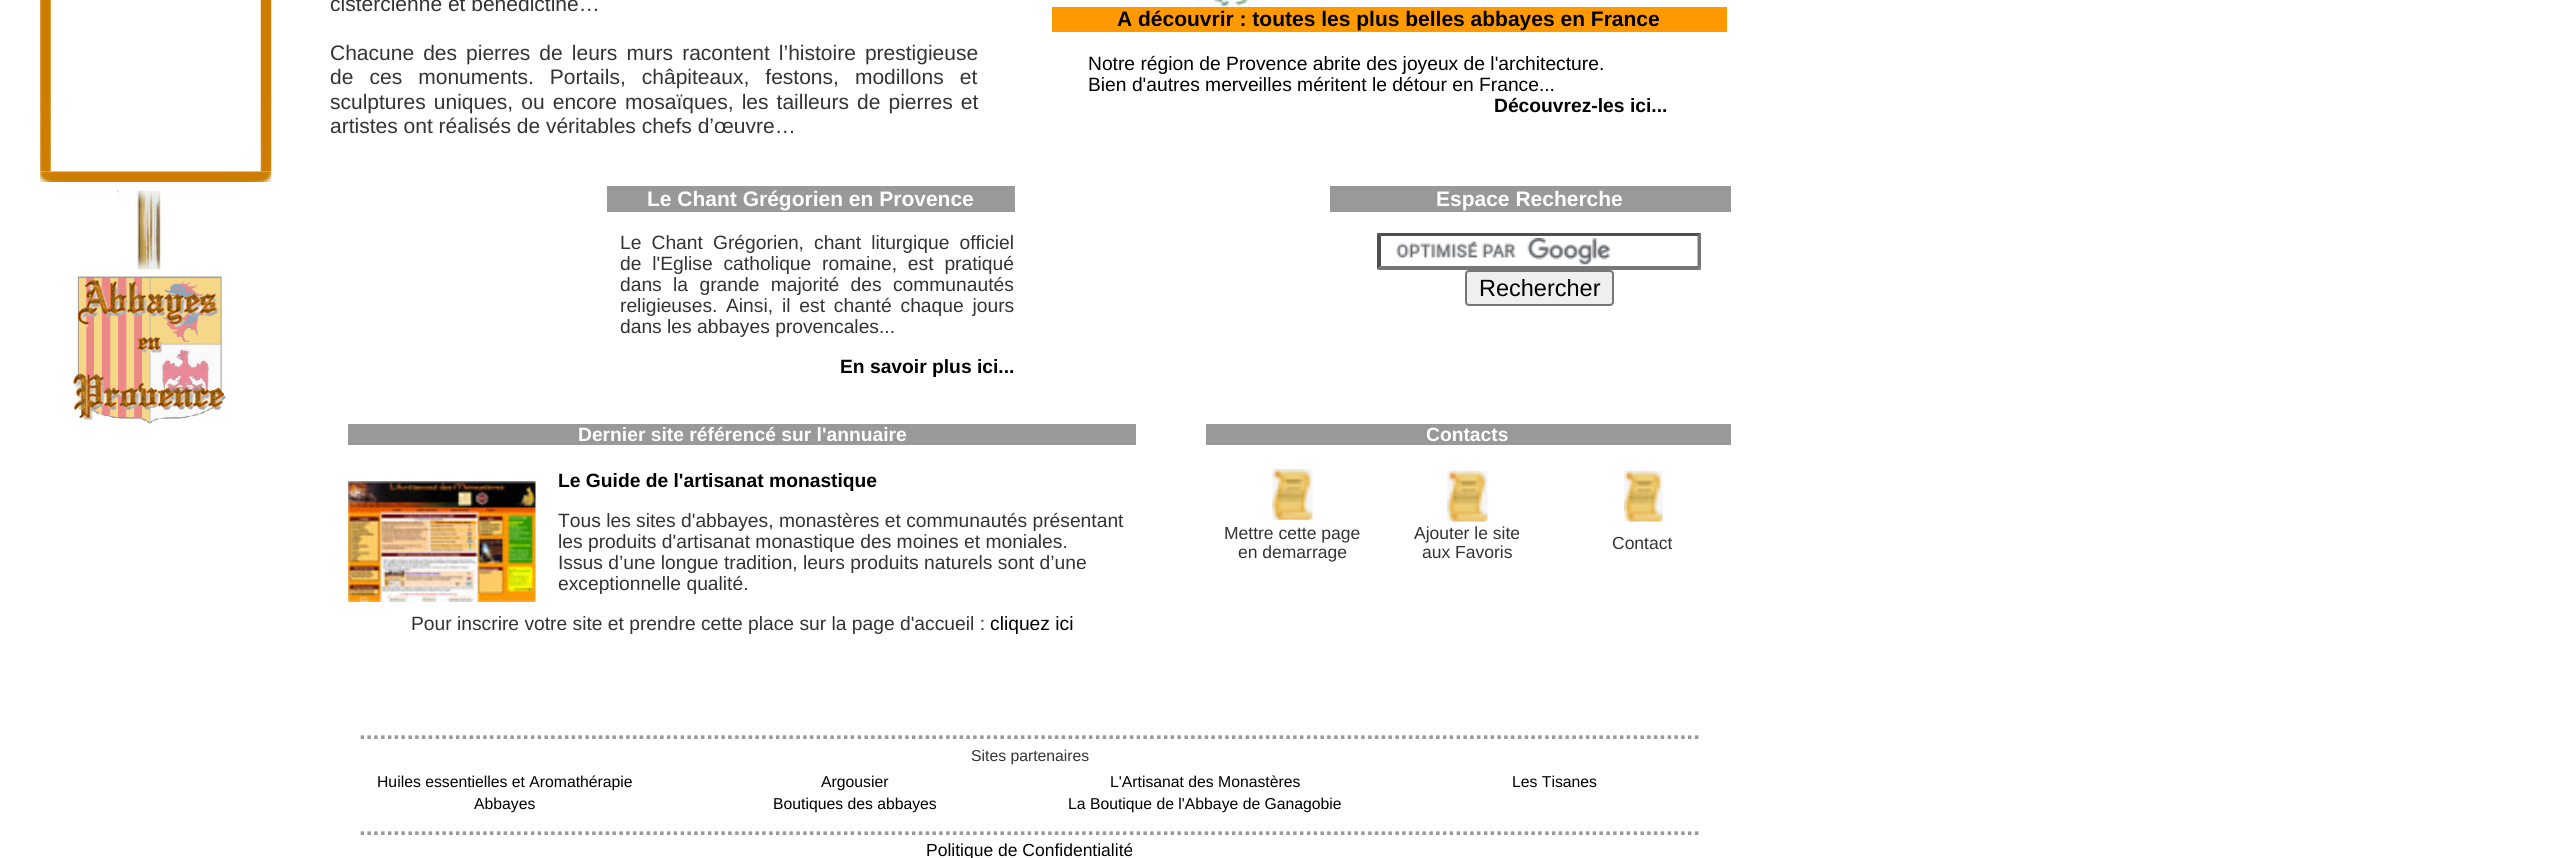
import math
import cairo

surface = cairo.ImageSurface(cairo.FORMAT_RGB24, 2562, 858)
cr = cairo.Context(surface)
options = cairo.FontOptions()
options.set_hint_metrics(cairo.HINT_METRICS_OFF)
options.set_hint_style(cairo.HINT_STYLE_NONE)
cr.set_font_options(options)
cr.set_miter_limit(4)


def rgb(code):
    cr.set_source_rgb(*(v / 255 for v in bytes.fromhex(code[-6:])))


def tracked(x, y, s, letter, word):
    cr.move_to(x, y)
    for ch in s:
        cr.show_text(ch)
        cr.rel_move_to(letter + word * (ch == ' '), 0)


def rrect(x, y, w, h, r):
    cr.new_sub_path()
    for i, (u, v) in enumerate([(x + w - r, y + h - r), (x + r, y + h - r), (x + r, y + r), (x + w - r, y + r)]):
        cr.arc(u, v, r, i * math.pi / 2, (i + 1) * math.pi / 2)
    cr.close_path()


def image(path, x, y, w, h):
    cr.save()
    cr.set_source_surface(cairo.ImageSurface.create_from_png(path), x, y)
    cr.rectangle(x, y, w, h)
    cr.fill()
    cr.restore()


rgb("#ffffff")
cr.paint()
image("img/1.png", 40, 0, 11, 172)
image("img/2.png", 260, 0, 12, 172)
image("img/3.png", 40, 171, 232, 11)
image("img/4.png", 117, 190, 49, 80)
image("img/5.png", 73, 276, 153, 148)
image("img/6.png", 1193, 0, 68, 7)
for x, y, w, h, color in [
    (1052, 7, 675, 25, "#ff9900"),
    (607, 186, 408, 26, "#999999"),
    (1330, 186, 401, 26, "#999999"),
]:
    rgb(color)
    cr.rectangle(x, y, w, h)
    cr.fill()
image("img/7.png", 1396, 238, 214, 27)
rgb("#4f4f4f")
cr.new_path()
cr.move_to(1377, 233)
cr.line_to(1701, 233)
cr.line_to(1698, 236)
cr.line_to(1381, 236)
cr.close_path()
cr.fill()
rgb("#767676")
cr.new_path()
cr.move_to(1701, 233)
cr.line_to(1701, 269.5)
cr.line_to(1697.5, 266)
cr.line_to(1697.5, 236)
cr.close_path()
cr.fill()
cr.new_path()
cr.move_to(1701, 270)
cr.line_to(1377, 270)
cr.line_to(1381, 266)
cr.line_to(1698, 266)
cr.close_path()
cr.fill()
rgb("#4f4f4f")
cr.new_path()
cr.move_to(1377, 269.5)
cr.line_to(1377, 233)
cr.line_to(1381, 236)
cr.line_to(1381, 266)
cr.close_path()
cr.fill()
rgb("#efefef")
rrect(1466, 271, 147, 34, 3)
cr.fill_preserve()
rgb("#767676")
cr.stroke()
rgb("#999999")
cr.rectangle(348, 424, 788, 21)
cr.fill()
image("img/8.png", 348, 481, 188, 121)
cr.rectangle(1206, 424, 525, 21)
cr.fill()
image("img/9.png", 1272, 469, 41, 51)
image("img/10.png", 1447, 470, 41, 52)
image("img/11.png", 1624, 470, 39, 52)
cr.select_font_face("Liberation Sans")
cr.set_font_size(21)
rgb("#333333")
cr.move_to(330, 11)
cr.show_text("cistercienne et bénédictine…")
tracked(330, 60, "Chacune des pierres de leurs murs racontent l’histoire prestigieuse", 0, 3.25)
tracked(330, 84, "de ces monuments. Portails, châpiteaux, festons, modillons et", 0, 10.25)
tracked(330, 109, "sculptures uniques, ou encore mosaïques, les tailleurs de pierres et", 0, 2.25)
cr.move_to(330, 133)
cr.show_text("artistes ont réalisés de véritables chefs d’œuvre…")
cr.select_font_face("Liberation Sans", cairo.FONT_SLANT_NORMAL, cairo.FONT_WEIGHT_BOLD)
rgb("#000000")
cr.move_to(1117, 26)
cr.show_text("A découvrir : toutes les plus belles abbayes en France")
cr.select_font_face("Liberation Sans")
cr.set_font_size(19.25)
cr.move_to(1088, 70)
cr.show_text("Notre région de Provence abrite des joyeux de l'architecture.")
cr.move_to(1088, 91)
cr.show_text("Bien d'autres merveilles méritent le détour en France...")
cr.select_font_face("Liberation Sans", cairo.FONT_SLANT_NORMAL, cairo.FONT_WEIGHT_BOLD)
cr.move_to(1494, 112)
cr.show_text("Découvrez-les ici...")
cr.set_font_size(21)
rgb("#ffffff")
cr.move_to(647, 206)
cr.show_text("Le Chant Grégorien en Provence")
cr.move_to(1436, 206)
cr.show_text("Espace Recherche")
cr.select_font_face("Liberation Sans")
cr.set_font_size(19.25)
rgb("#333333")
tracked(620, 249, "Le Chant Grégorien, chant liturgique officiel", 0, 4.75)
tracked(620, 270, "de l'Eglise catholique romaine, est pratiqué", 0, 5.5)
tracked(620, 291, "dans la grande majorité des communautés", 0, 6)
cr.move_to(620, 312)
cr.show_text("religieuses.")
tracked(726, 312, "Ainsi, il est chanté chaque jours", 0, 3.5)
cr.move_to(620, 333)
cr.show_text("dans les abbayes provencales...")
cr.select_font_face("Liberation Sans", cairo.FONT_SLANT_NORMAL, cairo.FONT_WEIGHT_BOLD)
rgb("#000000")
cr.move_to(840, 373)
cr.show_text("En savoir plus ici...")
cr.select_font_face("Liberation Sans")
cr.set_font_size(23.5)
cr.move_to(1479, 296)
cr.show_text("Rechercher")
cr.select_font_face("Liberation Sans", cairo.FONT_SLANT_NORMAL, cairo.FONT_WEIGHT_BOLD)
cr.set_font_size(19.25)
rgb("#ffffff")
cr.move_to(578, 441)
cr.show_text("Dernier site référencé sur l'annuaire")
rgb("#000000")
cr.move_to(558, 487)
cr.show_text("Le Guide de l'artisanat monastique")
cr.select_font_face("Liberation Sans")
rgb("#333333")
for x, y, s in [
    (558, 527, "Tous les sites d'abbayes, monastères et communautés présentant"),
    (558, 548, "les produits d'artisanat monastique des moines et moniales."),
    (558, 569, "Issus d’une longue tradition, leurs produits naturels sont d’une"),
    (558, 590, "exceptionnelle qualité."),
    (411, 630, "Pour inscrire votre site et prendre cette place sur la page d'accueil :"),
]:
    cr.move_to(x, y)
    cr.show_text(s)
rgb("#000000")
cr.move_to(990, 630)
cr.show_text("cliquez ici")
cr.select_font_face("Liberation Sans", cairo.FONT_SLANT_NORMAL, cairo.FONT_WEIGHT_BOLD)
rgb("#ffffff")
cr.move_to(1426, 441)
cr.show_text("Contacts")
cr.select_font_face("Liberation Sans")
cr.set_font_size(17.5)
rgb("#333333")
for x, y, s in [
    (1224, 539, "Mettre cette page"),
    (1238, 558, "en demarrage"),
    (1414, 539, "Ajouter le site"),
    (1422, 558, "aux Favoris"),
    (1612, 549, "Contact"),
]:
    cr.move_to(x, y)
    cr.show_text(s)
cr.select_font_face("Liberation Sans", cairo.FONT_SLANT_NORMAL, cairo.FONT_WEIGHT_BOLD)
cr.set_font_size(24.5)
rgb("#999999")
cr.move_to(359, 739)
cr.show_text(".....................................................................................................................................................................................................")
cr.select_font_face("Liberation Sans")
cr.set_font_size(15.75)
rgb("#333333")
cr.move_to(971, 761)
cr.show_text("Sites partenaires")
rgb("#000000")
for x, y, s in [
    (377, 787, "Huiles essentielles et Aromathérapie"),
    (821, 787, "Argousier"),
    (1110, 787, "L'Artisanat des Monastères"),
    (1512, 787, "Les Tisanes"),
    (474, 809, "Abbayes"),
    (773, 809, "Boutiques des abbayes"),
    (1068, 809, "La Boutique de l'Abbaye de Ganagobie"),
]:
    cr.move_to(x, y)
    cr.show_text(s)
cr.select_font_face("Liberation Sans", cairo.FONT_SLANT_NORMAL, cairo.FONT_WEIGHT_BOLD)
cr.set_font_size(24.5)
rgb("#999999")
cr.move_to(359, 835)
cr.show_text(".....................................................................................................................................................................................................")
cr.select_font_face("Liberation Sans")
cr.set_font_size(17.5)
rgb("#000000")
cr.move_to(926, 856)
cr.show_text("Politique de Confidentialité")
surface.write_to_png("page.png")
